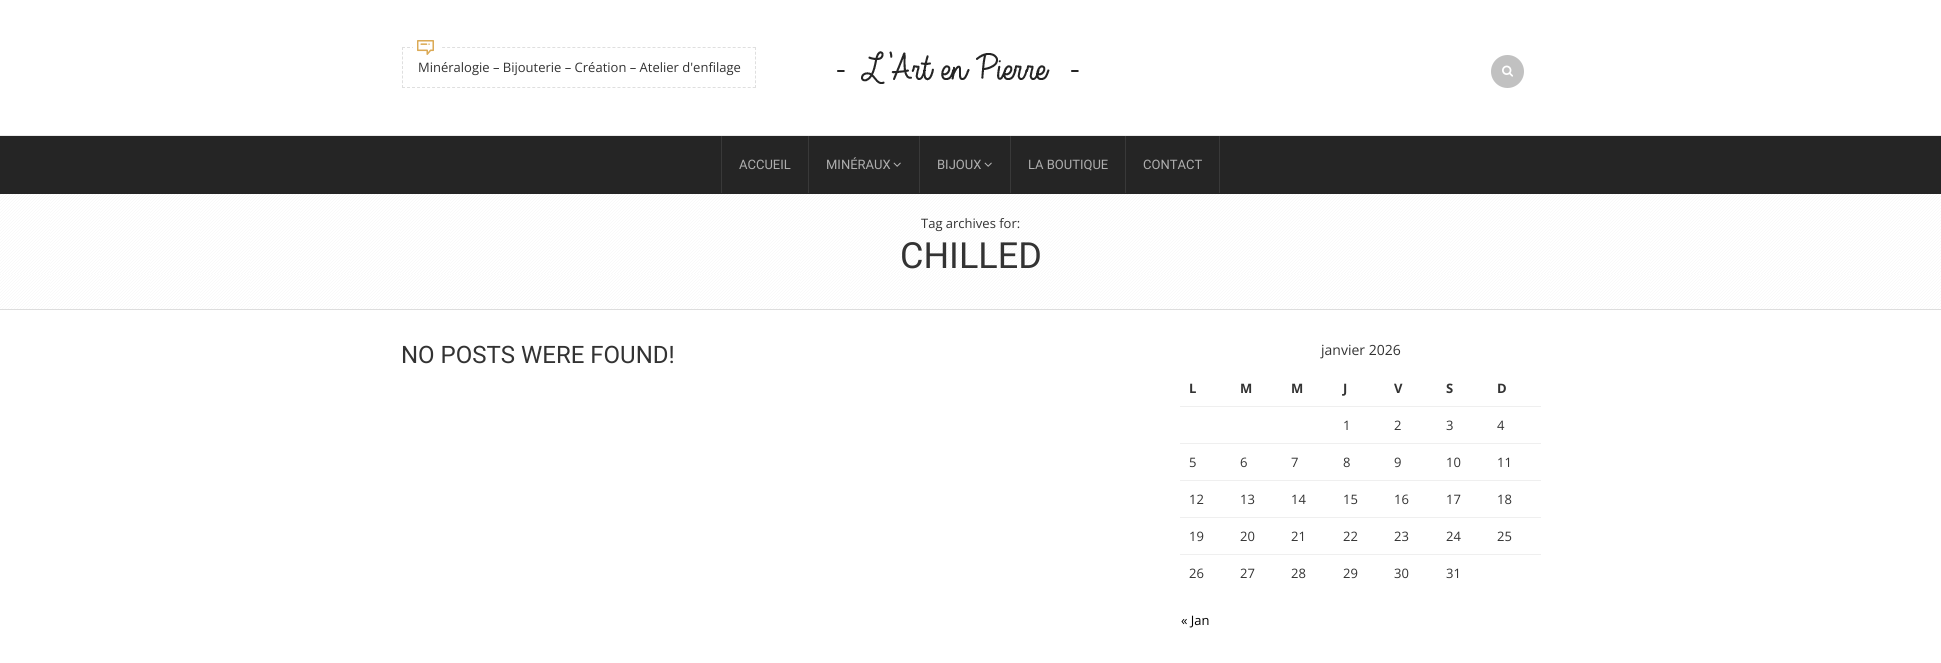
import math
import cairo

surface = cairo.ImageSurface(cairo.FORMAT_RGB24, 1941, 663)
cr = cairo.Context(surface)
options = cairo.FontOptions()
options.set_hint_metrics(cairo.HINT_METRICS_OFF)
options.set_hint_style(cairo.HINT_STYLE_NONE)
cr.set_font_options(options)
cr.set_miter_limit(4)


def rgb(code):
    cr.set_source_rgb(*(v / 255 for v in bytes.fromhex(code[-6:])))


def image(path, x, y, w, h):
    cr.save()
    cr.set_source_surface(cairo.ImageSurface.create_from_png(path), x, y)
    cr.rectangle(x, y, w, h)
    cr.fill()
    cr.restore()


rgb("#ffffff")
cr.paint()
cr.new_path()
cr.move_to(402, 47.5)
cr.line_to(756, 47.5)
rgb("#dfdfdf")
cr.set_line_width(1)
cr.set_dash([3, 2.01])
cr.stroke()
cr.new_path()
cr.move_to(755.5, 47)
cr.line_to(755.5, 88)
cr.set_dash([3, 1.75])
cr.stroke()
cr.new_path()
cr.move_to(402, 87.5)
cr.line_to(756, 87.5)
cr.set_dash([3, 2.01])
cr.stroke()
cr.new_path()
cr.move_to(402.5, 47)
cr.line_to(402.5, 88)
cr.set_dash([3, 1.75])
cr.stroke()
rgb("#ffffff")
cr.rectangle(413, 47, 27, 1)
cr.fill()
image("img/1.png", 417, 40, 17, 15)
image("img/2.png", 837, 51, 242, 33)
rgb("#c1c1c1")
cr.arc(1507.5, 71.5, 16.5, 0, 2 * math.pi)
cr.fill()
image("img/3.png", 1502, 65, 11, 12)
for x, y, w, h, color in [
    (0, 136, 1941, 58, "#252525"),
    (0, 135, 1941, 1, "#ebebeb"),
    (721, 136, 1, 57, "#393939"),
    (808, 136, 1, 57, "#393939"),
]:
    rgb(color)
    cr.rectangle(x, y, w, h)
    cr.fill()
image("img/4.png", 893, 162, 8, 5)
cr.rectangle(919, 136, 1, 57)
cr.fill()
image("img/4.png", 984, 162, 8, 5)
for x, y, w, h, color in [
    (1010, 136, 1, 57, "#393939"),
    (1219, 136, 1, 57, "#393939"),
    (1125, 136, 1, 57, "#393939"),
]:
    rgb(color)
    cr.rectangle(x, y, w, h)
    cr.fill()
image("img/5.png", 0, 194, 1941, 115)
for x, y, w, h, color in [
    (0, 309, 1941, 1, "#dddddd"),
    (1180, 406, 361, 1, "#efefef"),
    (1180, 443, 361, 1, "#efefef"),
    (1180, 480, 361, 1, "#efefef"),
    (1180, 517, 361, 1, "#efefef"),
    (1180, 554, 361, 1, "#efefef"),
]:
    rgb(color)
    cr.rectangle(x, y, w, h)
    cr.fill()
cr.select_font_face("Open Sans")
cr.set_font_size(13)
rgb("#333333")
cr.move_to(418, 72)
cr.show_text("Minéralogie – Bijouterie – Création – Atelier d'enfilage")
cr.select_font_face("Roboto")
rgb("#aeaeae")
for x, y, s in [
    (739, 169, "ACCUEIL"),
    (826, 169, "MINÉRAUX"),
    (937, 169, "BIJOUX"),
    (1028, 169, "LA BOUTIQUE"),
    (1143, 169, "CONTACT"),
]:
    cr.move_to(x, y)
    cr.show_text(s)
cr.select_font_face("Open Sans")
rgb("#333333")
cr.move_to(921, 228)
cr.show_text("Tag archives for:")
cr.select_font_face("Roboto")
cr.set_font_size(36)
cr.move_to(900, 268)
cr.show_text("CHILLED")
cr.set_font_size(24)
cr.move_to(401, 363)
cr.show_text("NO POSTS WERE FOUND!")
cr.select_font_face("Open Sans")
cr.set_font_size(14)
cr.move_to(1321, 355)
cr.show_text("janvier 2026")
cr.select_font_face("Open Sans", cairo.FONT_SLANT_NORMAL, cairo.FONT_WEIGHT_BOLD)
cr.set_font_size(13)
for x, y, s in [
    (1189, 393, "L"),
    (1240, 393, "M"),
    (1291, 393, "M"),
    (1343, 393, "J"),
    (1394, 393, "V"),
    (1446, 393, "S"),
    (1497, 393, "D"),
]:
    cr.move_to(x, y)
    cr.show_text(s)
cr.select_font_face("Open Sans")
for x, y, s in [
    (1343, 430, "1"),
    (1394, 430, "2"),
    (1446, 430, "3"),
    (1497, 430, "4"),
    (1189, 467, "5"),
    (1240, 467, "6"),
    (1291, 467, "7"),
    (1343, 467, "8"),
    (1394, 467, "9"),
    (1446, 467, "10"),
    (1497, 467, "11"),
    (1189, 504, "12"),
    (1240, 504, "13"),
    (1291, 504, "14"),
    (1343, 504, "15"),
    (1394, 504, "16"),
    (1446, 504, "17"),
    (1497, 504, "18"),
    (1189, 541, "19"),
    (1240, 541, "20"),
    (1291, 541, "21"),
    (1343, 541, "22"),
    (1394, 541, "23"),
    (1446, 541, "24"),
    (1497, 541, "25"),
    (1189, 578, "26"),
    (1240, 578, "27"),
    (1291, 578, "28"),
    (1343, 578, "29"),
    (1394, 578, "30"),
    (1446, 578, "31"),
]:
    cr.move_to(x, y)
    cr.show_text(s)
rgb("#000000")
cr.move_to(1181, 625)
cr.show_text("« Jan")
surface.write_to_png("page.png")
